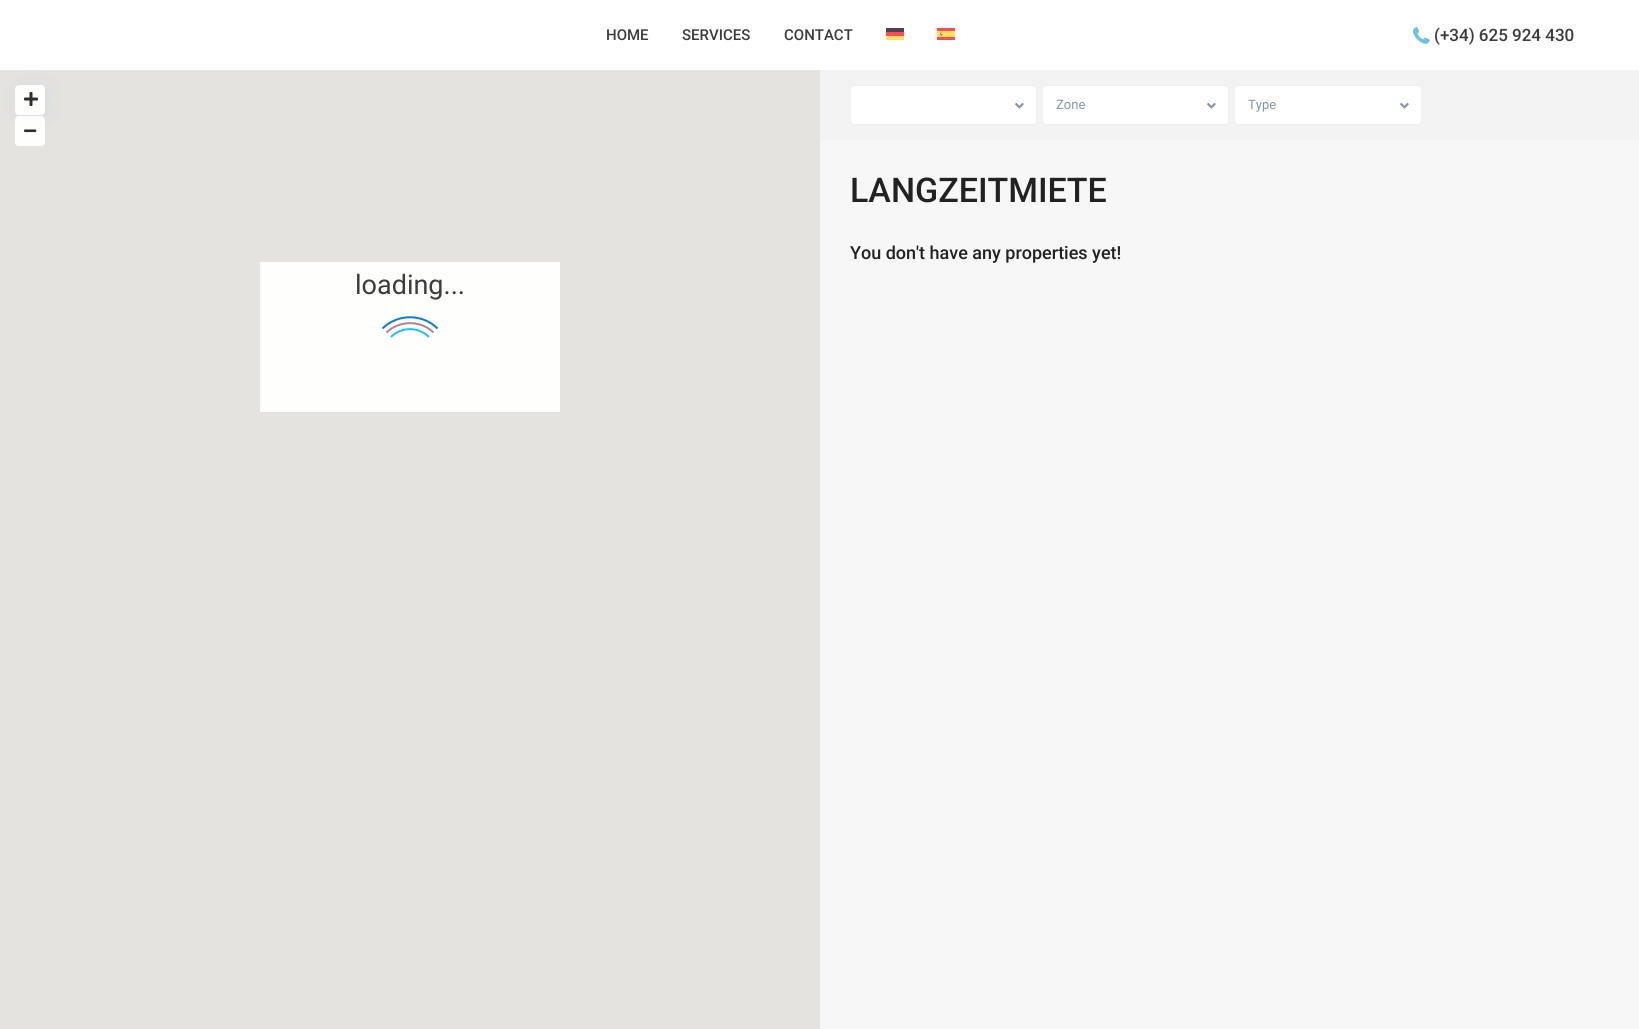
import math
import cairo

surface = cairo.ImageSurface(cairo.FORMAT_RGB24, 1639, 1029)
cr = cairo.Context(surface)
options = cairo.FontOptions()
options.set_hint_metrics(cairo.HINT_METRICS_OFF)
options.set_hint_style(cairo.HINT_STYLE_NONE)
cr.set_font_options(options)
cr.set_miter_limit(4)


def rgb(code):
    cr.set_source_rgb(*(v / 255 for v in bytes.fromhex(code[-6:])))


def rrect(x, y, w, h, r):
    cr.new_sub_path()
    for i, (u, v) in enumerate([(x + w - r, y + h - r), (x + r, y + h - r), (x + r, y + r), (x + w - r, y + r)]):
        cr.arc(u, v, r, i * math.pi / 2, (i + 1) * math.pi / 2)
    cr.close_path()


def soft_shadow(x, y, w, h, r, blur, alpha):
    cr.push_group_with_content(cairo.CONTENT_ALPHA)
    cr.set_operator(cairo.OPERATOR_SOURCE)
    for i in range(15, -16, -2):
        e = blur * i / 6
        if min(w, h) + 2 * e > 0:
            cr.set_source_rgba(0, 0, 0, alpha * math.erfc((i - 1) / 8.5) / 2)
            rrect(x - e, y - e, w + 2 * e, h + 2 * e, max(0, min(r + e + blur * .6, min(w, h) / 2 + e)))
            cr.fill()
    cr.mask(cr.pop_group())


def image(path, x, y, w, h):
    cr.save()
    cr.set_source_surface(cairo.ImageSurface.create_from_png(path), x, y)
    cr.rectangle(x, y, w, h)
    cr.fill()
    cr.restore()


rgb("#f7f7f7")
cr.paint()
rgb("#e5e3df")
cr.rectangle(0, 70, 820, 959)
cr.fill()
rgb("#006ee1")
soft_shadow(18, 86, 30, 30, 4, 10, 0.08)
for x, y, w, h, color in [
    (0, 0, 1639, 70, "#ffffff"),
    (886, 28, 18, 4, "#464655"),
    (886, 32, 18, 4, "#ff4b55"),
    (886, 36, 18, 4, "#ffe15a"),
]:
    rgb(color)
    cr.rectangle(x, y, w, h)
    cr.fill()
image("img/1.png", 937, 28, 18, 12)
image("img/2.png", 1413, 27, 17, 17)
rgb("#f3f3f3")
cr.rectangle(820, 70, 819, 70)
cr.fill()
rgb("#ffffff")
rrect(850.5, 85.5, 186, 39, 3.5)
cr.fill_preserve()
rgb("#f0f0f0")
cr.set_line_width(1)
cr.stroke()
image("img/3.png", 1015, 103, 9, 6)
rgb("#ffffff")
rrect(1042.5, 85.5, 186, 39, 3.5)
cr.fill_preserve()
rgb("#f0f0f0")
cr.stroke()
image("img/3.png", 1207, 103, 9, 6)
rgb("#ffffff")
rrect(1234.5, 85.5, 187, 39, 3.5)
cr.fill_preserve()
rgb("#f0f0f0")
cr.stroke()
image("img/3.png", 1400, 103, 9, 6)
rgb("#fefefd")
rrect(15, 85, 30, 30, 4)
cr.fill()
image("img/4.png", 24, 92, 14, 14)
cr.set_source_rgba(1, 1, 1, 0.95)
rrect(15, 116, 30, 30, 4)
cr.fill()
image("img/5.png", 24, 129, 13, 4)
rgb("#fefefd")
cr.rectangle(260, 262, 300, 150)
cr.fill()
cr.new_path()
cr.move_to(382.5, 328.5)
cr.curve_to(397.5, 313.5, 422.5, 313.5, 437.5, 328.5)
rgb("#0b79e1")
cr.set_line_width(2)
cr.stroke()
cr.new_path()
cr.move_to(386.5, 332.5)
cr.curve_to(399.5, 320, 420.5, 320, 433.5, 332.5)
rgb("#b38290")
cr.stroke()
cr.new_path()
cr.move_to(391, 337)
cr.curve_to(401.5, 326.5, 418.5, 326.5, 429, 337)
rgb("#18c5f7")
cr.stroke()
cr.select_font_face("Roboto Medium")
cr.set_font_size(15)
rgb("#3c3c3c")
for x, y, s in [
    (606, 40, "HOME"),
    (682, 40, "SERVICES"),
    (784, 40, "CONTACT"),
]:
    cr.move_to(x, y)
    cr.show_text(s)
cr.set_font_size(17)
cr.move_to(1434, 41)
cr.show_text("(+34) 625 924 430")
cr.select_font_face("Roboto")
cr.set_font_size(13)
rgb("#8593a9")
cr.move_to(1056, 109)
cr.show_text("Zone")
cr.move_to(1248, 109)
cr.show_text("Type")
cr.select_font_face("Roboto Medium")
cr.set_font_size(34)
rgb("#222222")
cr.move_to(850, 202)
cr.show_text("LANGZEITMIETE")
cr.set_font_size(18)
cr.move_to(850, 259)
cr.show_text("You don't have any properties yet!")
cr.select_font_face("Roboto")
cr.set_font_size(27)
rgb("#3c3c3c")
cr.move_to(355, 294)
cr.show_text("loading...")
surface.write_to_png("page.png")
